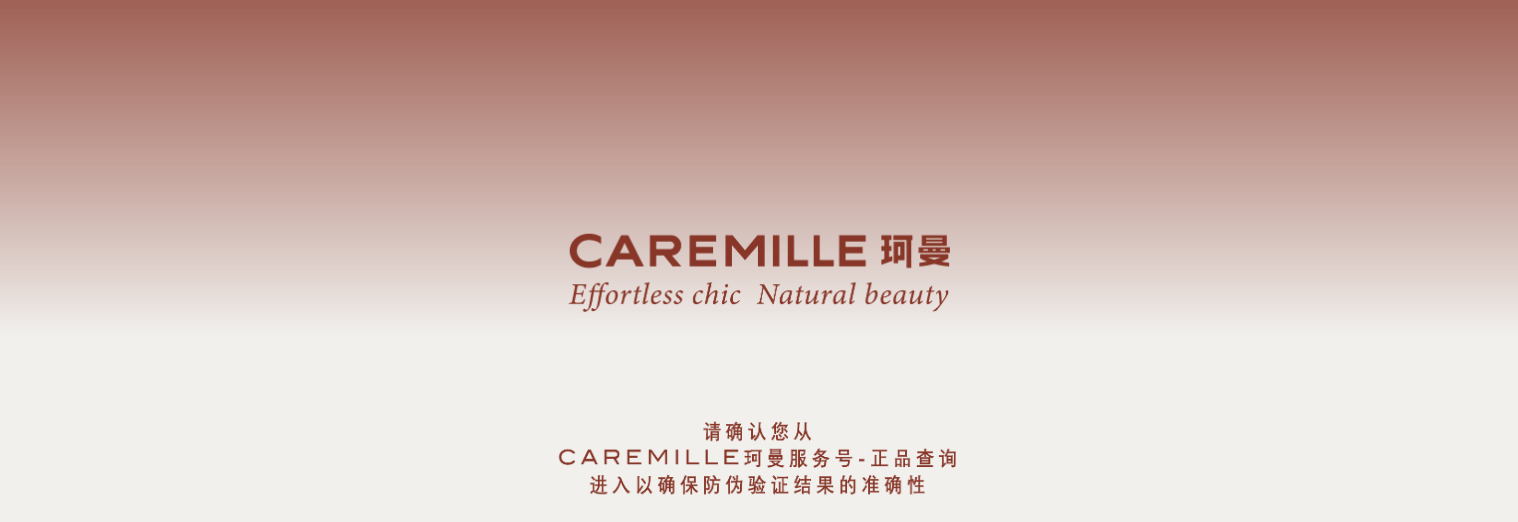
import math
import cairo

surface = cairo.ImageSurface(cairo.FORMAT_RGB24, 1518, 522)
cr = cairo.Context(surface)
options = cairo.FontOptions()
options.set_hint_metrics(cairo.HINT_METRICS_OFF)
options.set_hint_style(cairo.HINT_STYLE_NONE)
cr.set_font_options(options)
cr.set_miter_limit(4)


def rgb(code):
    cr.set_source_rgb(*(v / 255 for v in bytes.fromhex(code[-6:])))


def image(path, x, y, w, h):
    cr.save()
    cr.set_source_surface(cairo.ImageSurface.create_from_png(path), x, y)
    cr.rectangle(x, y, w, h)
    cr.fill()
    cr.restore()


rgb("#ffffff")
cr.paint()
image("img/1.png", 0, 0, 1518, 522)
image("img/2.png", 568, 233, 382, 80)
image("img/3.png", 558, 421, 398, 74)
surface.write_to_png("page.png")
